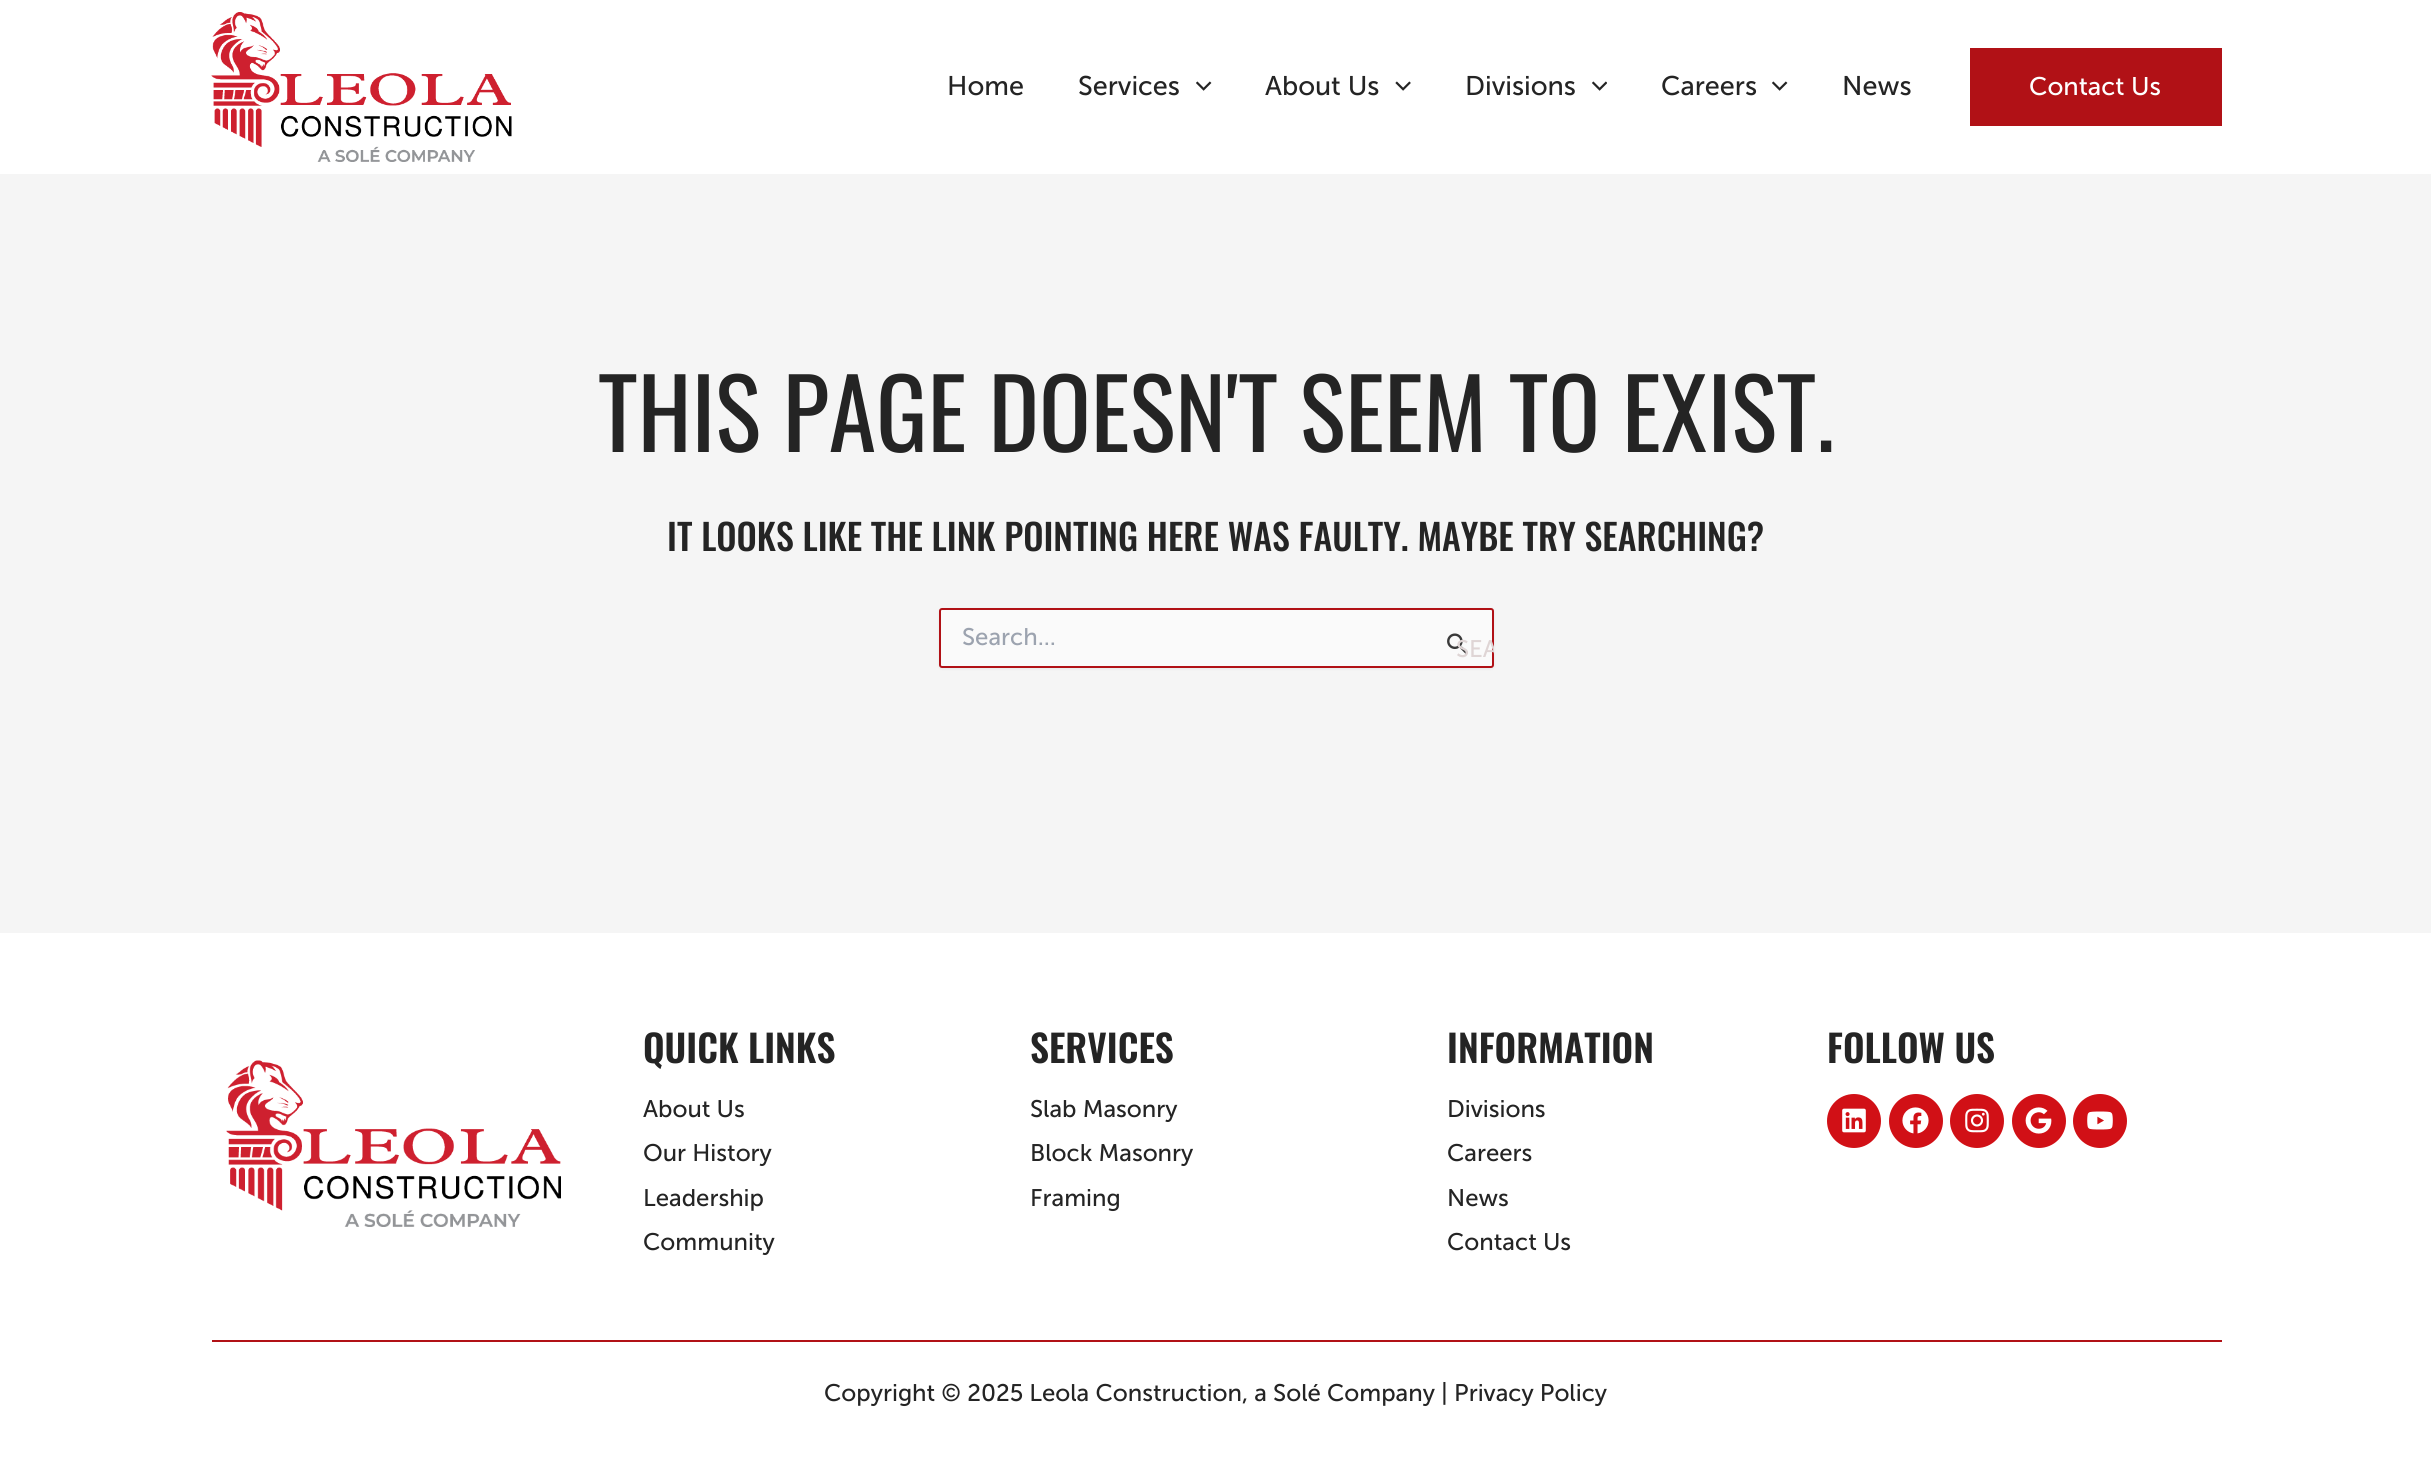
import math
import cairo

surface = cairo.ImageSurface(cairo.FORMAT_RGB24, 2431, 1473)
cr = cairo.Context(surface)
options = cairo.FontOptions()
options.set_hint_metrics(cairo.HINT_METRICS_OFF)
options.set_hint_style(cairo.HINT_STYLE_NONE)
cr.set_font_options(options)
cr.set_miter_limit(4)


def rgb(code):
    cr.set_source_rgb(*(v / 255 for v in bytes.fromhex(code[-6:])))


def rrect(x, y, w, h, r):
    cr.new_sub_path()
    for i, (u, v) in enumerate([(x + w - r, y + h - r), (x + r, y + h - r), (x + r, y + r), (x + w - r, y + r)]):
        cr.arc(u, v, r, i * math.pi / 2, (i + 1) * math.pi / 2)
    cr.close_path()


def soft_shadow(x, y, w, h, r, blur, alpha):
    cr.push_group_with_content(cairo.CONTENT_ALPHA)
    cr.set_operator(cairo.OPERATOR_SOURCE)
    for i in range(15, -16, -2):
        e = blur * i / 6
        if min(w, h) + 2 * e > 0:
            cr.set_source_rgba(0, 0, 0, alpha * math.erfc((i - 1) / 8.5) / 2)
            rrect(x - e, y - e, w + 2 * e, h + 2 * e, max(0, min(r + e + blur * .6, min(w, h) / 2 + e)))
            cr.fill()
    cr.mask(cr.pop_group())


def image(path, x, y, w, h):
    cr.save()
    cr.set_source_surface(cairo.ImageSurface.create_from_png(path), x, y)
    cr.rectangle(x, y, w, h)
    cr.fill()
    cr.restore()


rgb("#f5f5f5")
cr.paint()
rgb("#ffffff")
cr.rectangle(0, 0, 2431, 174)
cr.fill()
image("img/1.png", 211, 12, 301, 150)
image("img/2.png", 1196, 81, 16, 10)
image("img/3.png", 1395, 81, 16, 10)
image("img/4.png", 1592, 81, 15, 10)
image("img/2.png", 1772, 81, 16, 10)
rgb("#b11116")
cr.rectangle(1970, 48, 252, 78)
cr.fill()
rgb("#000000")
soft_shadow(939, 609, 555, 60, 3, 1.5, 0.05)
rgb("#fafafa")
rrect(940, 609, 553, 58, 2)
cr.fill_preserve()
rgb("#b11116")
cr.stroke()
image("img/5.png", 1447, 633, 21, 22)
rgb("#ffffff")
cr.rectangle(0, 933, 2431, 540)
cr.fill()
image("img/6.png", 226, 1060, 335, 167)
rgb("#d11016")
cr.arc(1854, 1121, 27, 0, 2 * math.pi)
cr.fill()
image("img/7.png", 1842, 1108, 24, 25)
cr.arc(1916, 1121, 27, 0, 2 * math.pi)
cr.fill()
image("img/8.png", 1902, 1107, 27, 27)
cr.arc(1977, 1121, 27, 0, 2 * math.pi)
cr.fill()
image("img/9.png", 1965, 1108, 24, 25)
cr.arc(2039, 1121, 27, 0, 2 * math.pi)
cr.fill()
image("img/10.png", 2025, 1107, 27, 27)
cr.arc(2100, 1121, 27, 0, 2 * math.pi)
cr.fill()
image("img/11.png", 2087, 1111, 26, 19)
rgb("#b11116")
cr.rectangle(212, 1340, 2010, 2)
cr.fill()
cr.select_font_face("Museo Sans")
cr.set_font_size(27)
rgb("#242424")
for x, y, s in [
    (947, 95, "Home"),
    (1078, 95, "Services"),
    (1265, 95, "About Us"),
    (1465, 95, "Divisions"),
    (1661, 95, "Careers"),
    (1842, 95, "News"),
]:
    cr.move_to(x, y)
    cr.show_text(s)
cr.set_font_size(25.5)
rgb("#ffffff")
cr.move_to(2029, 95)
cr.show_text("Contact Us")
cr.select_font_face("Oswald")
cr.set_font_size(96)
rgb("#242424")
cr.move_to(598, 452)
cr.show_text("THIS PAGE DOESN'T SEEM TO EXIST.")
cr.select_font_face("Oswald Medium")
cr.set_font_size(36)
cr.move_to(667, 551)
cr.show_text("IT LOOKS LIKE THE LINK POINTING HERE WAS FAULTY. MAYBE TRY SEARCHING?")
cr.select_font_face("Museo Sans")
cr.set_font_size(24)
rgb("#9ca3af")
cr.move_to(962, 645)
cr.show_text("Search...")
cr.save()
rrect(1427, 608, 67, 84, 3)
cr.clip()
rgb("#dfd5d5")
cr.move_to(1456, 657)
cr.show_text("SEA")
cr.restore()
cr.select_font_face("Oswald SemiBold")
cr.set_font_size(37.5)
rgb("#242424")
cr.move_to(643, 1063)
cr.show_text("QUICK LINKS")
cr.select_font_face("Museo Sans")
cr.set_font_size(24)
for x, y, s in [
    (643, 1117, "About Us"),
    (643, 1161, "Our History"),
    (643, 1206, "Leadership"),
    (643, 1250, "Community"),
]:
    cr.move_to(x, y)
    cr.show_text(s)
cr.select_font_face("Oswald SemiBold")
cr.set_font_size(37.5)
cr.move_to(1030, 1063)
cr.show_text("SERVICES")
cr.select_font_face("Museo Sans")
cr.set_font_size(24)
for x, y, s in [
    (1030, 1117, "Slab Masonry"),
    (1030, 1161, "Block Masonry"),
    (1030, 1206, "Framing"),
]:
    cr.move_to(x, y)
    cr.show_text(s)
cr.select_font_face("Oswald SemiBold")
cr.set_font_size(37.5)
cr.move_to(1447, 1063)
cr.show_text("INFORMATION")
cr.select_font_face("Museo Sans")
cr.set_font_size(24)
for x, y, s in [
    (1447, 1117, "Divisions"),
    (1447, 1161, "Careers"),
    (1447, 1206, "News"),
    (1447, 1250, "Contact Us"),
]:
    cr.move_to(x, y)
    cr.show_text(s)
cr.select_font_face("Oswald SemiBold")
cr.set_font_size(37.5)
cr.move_to(1827, 1063)
cr.show_text("FOLLOW US")
cr.select_font_face("Museo Sans")
cr.set_font_size(24)
cr.move_to(824, 1401)
cr.show_text("Copyright © 2025 Leola Construction, a Solé Company | Privacy Policy")
surface.write_to_png("page.png")
